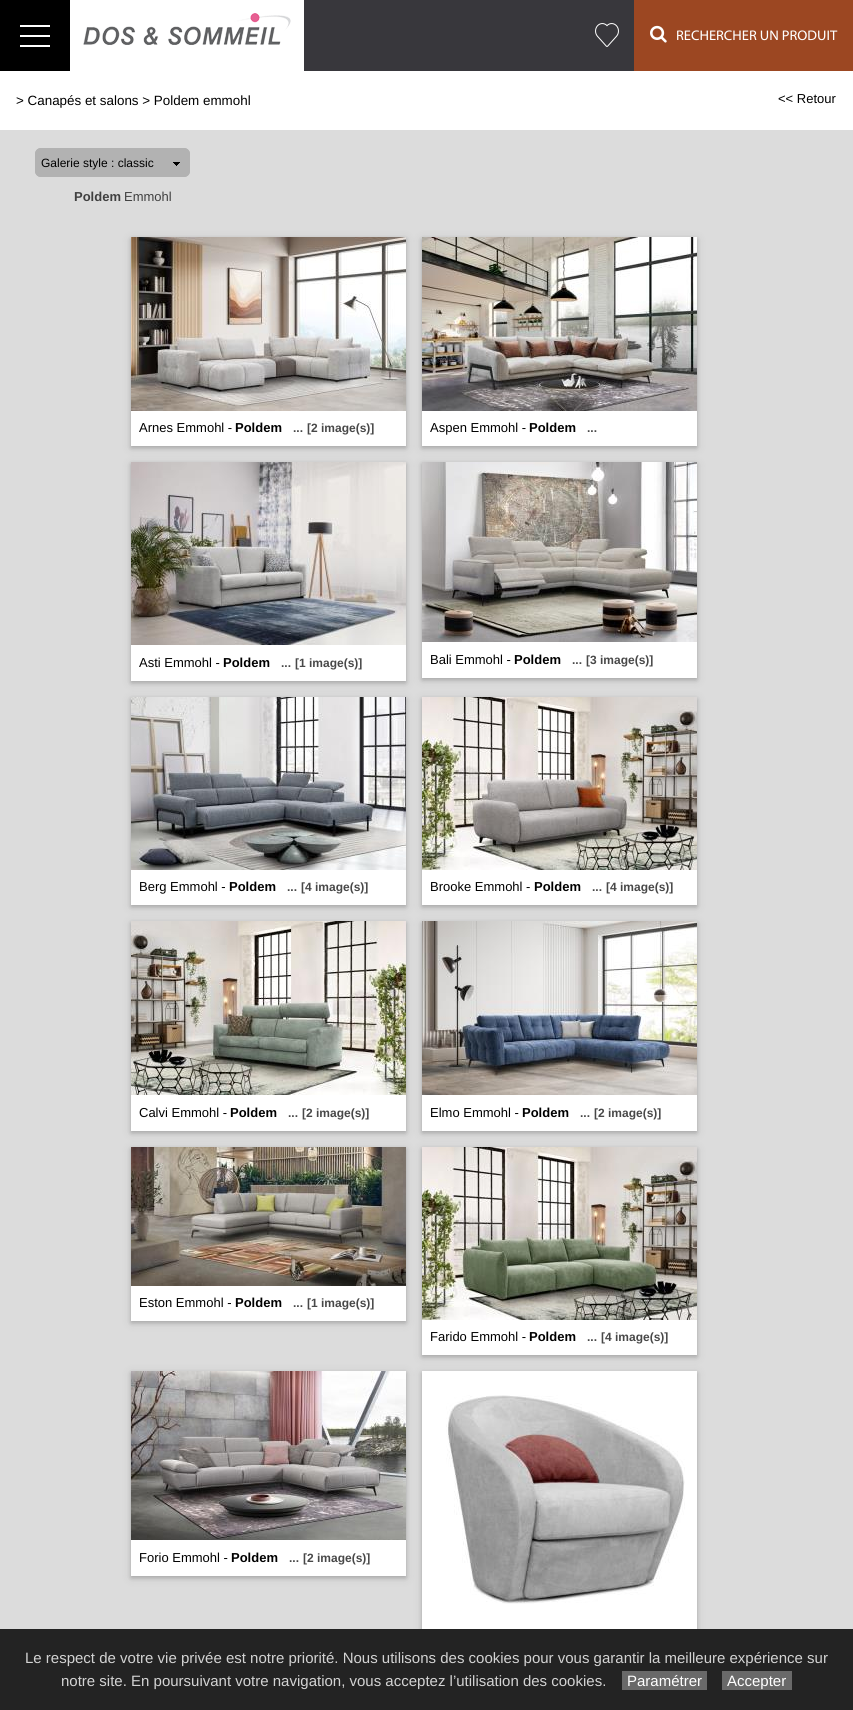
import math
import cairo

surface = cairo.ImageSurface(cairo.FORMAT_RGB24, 853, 1710)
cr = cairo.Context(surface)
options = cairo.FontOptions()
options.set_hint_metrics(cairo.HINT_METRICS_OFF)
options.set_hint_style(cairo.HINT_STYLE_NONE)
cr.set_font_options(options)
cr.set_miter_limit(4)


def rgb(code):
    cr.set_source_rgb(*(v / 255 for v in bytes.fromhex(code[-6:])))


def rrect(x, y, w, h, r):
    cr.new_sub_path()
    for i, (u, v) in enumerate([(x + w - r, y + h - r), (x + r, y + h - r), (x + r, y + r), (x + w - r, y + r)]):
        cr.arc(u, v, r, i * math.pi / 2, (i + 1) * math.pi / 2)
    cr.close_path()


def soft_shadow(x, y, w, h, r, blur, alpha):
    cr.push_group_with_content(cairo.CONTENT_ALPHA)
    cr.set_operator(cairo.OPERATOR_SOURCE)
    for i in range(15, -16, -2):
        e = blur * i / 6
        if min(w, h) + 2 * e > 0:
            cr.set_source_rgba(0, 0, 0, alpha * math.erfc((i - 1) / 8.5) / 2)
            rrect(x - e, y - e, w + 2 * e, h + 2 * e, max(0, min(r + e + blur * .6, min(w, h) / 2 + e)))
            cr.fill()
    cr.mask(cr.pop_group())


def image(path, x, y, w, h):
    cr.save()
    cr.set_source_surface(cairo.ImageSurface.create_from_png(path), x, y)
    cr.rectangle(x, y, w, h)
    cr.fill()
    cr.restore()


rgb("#ffffff")
cr.paint()
for x, y, w, h, color in [
    (304, 0, 330, 71, "#38373c"),
    (0, 0, 70, 71, "#000000"),
    (20, 25, 30, 2, "#ffffff"),
    (20, 35, 30, 2, "#ffffff"),
    (20, 45, 30, 2, "#ffffff"),
]:
    rgb(color)
    cr.rectangle(x, y, w, h)
    cr.fill()
image("img/1.png", 83, 13, 208, 32)
image("img/2.png", 595, 23, 24, 24)
rgb("#9c4722")
cr.rectangle(634, 0, 219, 71)
cr.fill()
image("img/3.png", 650, 25, 17, 18)
rgb("#dcdcdc")
cr.rectangle(0, 130, 853, 1499)
cr.fill()
rgb("#b2b2b2")
rrect(35, 148, 155, 29, 6)
cr.fill()
image("img/4.png", 173, 162, 7, 4)
rrect(35.5, 148.5, 154, 28, 5.5)
cr.set_line_width(1)
cr.stroke()
rgb("#000000")
soft_shadow(131, 239, 275, 209, 0, 5, 0.12)
soft_shadow(131, 239, 275, 209, 0, 2, 0.16)
rgb("#ffffff")
cr.rectangle(131, 411, 275, 35)
cr.fill()
image("img/5.png", 131, 237, 275, 174)
rgb("#000000")
soft_shadow(422, 239, 275, 209, 0, 5, 0.12)
soft_shadow(422, 239, 275, 209, 0, 2, 0.16)
rgb("#ffffff")
cr.rectangle(422, 411, 275, 35)
cr.fill()
image("img/6.png", 422, 237, 275, 174)
rgb("#000000")
soft_shadow(131, 464, 275, 219, 0, 5, 0.12)
soft_shadow(131, 464, 275, 219, 0, 2, 0.16)
rgb("#ffffff")
cr.rectangle(131, 645, 275, 36)
cr.fill()
image("img/7.png", 131, 462, 275, 183)
rgb("#000000")
soft_shadow(422, 464, 275, 216, 0, 5, 0.12)
soft_shadow(422, 464, 275, 216, 0, 2, 0.16)
rgb("#ffffff")
cr.rectangle(422, 642, 275, 36)
cr.fill()
image("img/8.png", 422, 462, 275, 180)
rgb("#000000")
soft_shadow(131, 699, 275, 208, 0, 5, 0.12)
soft_shadow(131, 699, 275, 208, 0, 2, 0.16)
rgb("#ffffff")
cr.rectangle(131, 870, 275, 35)
cr.fill()
image("img/9.png", 131, 697, 275, 173)
rgb("#000000")
soft_shadow(422, 699, 275, 208, 0, 5, 0.12)
soft_shadow(422, 699, 275, 208, 0, 2, 0.16)
rgb("#ffffff")
cr.rectangle(422, 870, 275, 35)
cr.fill()
image("img/10.png", 422, 697, 275, 173)
rgb("#000000")
soft_shadow(131, 923, 275, 210, 0, 5, 0.12)
soft_shadow(131, 923, 275, 210, 0, 2, 0.16)
rgb("#ffffff")
cr.rectangle(131, 1095, 275, 36)
cr.fill()
image("img/11.png", 131, 921, 275, 174)
rgb("#000000")
soft_shadow(422, 923, 275, 210, 0, 5, 0.12)
soft_shadow(422, 923, 275, 210, 0, 2, 0.16)
rgb("#ffffff")
cr.rectangle(422, 1095, 275, 36)
cr.fill()
image("img/12.png", 422, 921, 275, 174)
rgb("#000000")
soft_shadow(131, 1149, 275, 174, 0, 5, 0.12)
soft_shadow(131, 1149, 275, 174, 0, 2, 0.16)
rgb("#ffffff")
cr.rectangle(131, 1286, 275, 35)
cr.fill()
image("img/13.png", 131, 1147, 275, 139)
rgb("#000000")
soft_shadow(422, 1149, 275, 208, 0, 5, 0.12)
soft_shadow(422, 1149, 275, 208, 0, 2, 0.16)
rgb("#ffffff")
cr.rectangle(422, 1320, 275, 35)
cr.fill()
image("img/14.png", 422, 1147, 275, 173)
rgb("#000000")
soft_shadow(131, 1373, 275, 205, 0, 5, 0.12)
soft_shadow(131, 1373, 275, 205, 0, 2, 0.16)
rgb("#ffffff")
cr.rectangle(131, 1540, 275, 36)
cr.fill()
image("img/15.png", 131, 1371, 275, 169)
rgb("#000000")
soft_shadow(422, 1373, 275, 309, 0, 5, 0.12)
soft_shadow(422, 1373, 275, 309, 0, 2, 0.16)
rgb("#ffffff")
cr.rectangle(422, 1371, 275, 258)
cr.fill()
image("img/16.png", 446, 1395, 239, 209)
for x, y, w, h, color in [
    (0, 1629, 853, 81, "#232323"),
    (622, 1671, 85, 19, "#696969"),
    (722, 1671, 70, 19, "#696969"),
]:
    rgb(color)
    cr.rectangle(x, y, w, h)
    cr.fill()
cr.select_font_face("Myriad")
cr.set_font_size(14)
rgb("#ffffff")
cr.move_to(676, 40)
cr.show_text("RECHERCHER UN PRODUIT")
cr.select_font_face("Liberation Sans")
cr.set_font_size(13.4)
rgb("#000000")
cr.move_to(16, 105)
cr.show_text("> Canapés et salons > Poldem emmohl")
cr.set_font_size(13)
cr.move_to(778, 103)
cr.show_text("<< Retour")
cr.set_font_size(12)
cr.move_to(41, 167)
cr.show_text("Galerie style : classic")
cr.select_font_face("Liberation Sans", cairo.FONT_SLANT_NORMAL, cairo.FONT_WEIGHT_BOLD)
cr.set_font_size(13)
rgb("#404040")
cr.move_to(74, 201)
cr.show_text("Poldem")
cr.select_font_face("Liberation Sans")
cr.move_to(124, 201)
cr.show_text("Emmohl")
rgb("#000000")
cr.move_to(139, 432)
cr.show_text("Arnes Emmohl -")
cr.select_font_face("Liberation Sans", cairo.FONT_SLANT_NORMAL, cairo.FONT_WEIGHT_BOLD)
cr.move_to(235, 432)
cr.show_text("Poldem")
cr.set_font_size(12)
rgb("#484848")
cr.move_to(293, 432)
cr.show_text("...")
cr.move_to(307, 432)
cr.show_text("[2 image(s)]")
cr.select_font_face("Liberation Sans")
cr.set_font_size(13)
rgb("#000000")
cr.move_to(430, 432)
cr.show_text("Aspen Emmohl -")
cr.select_font_face("Liberation Sans", cairo.FONT_SLANT_NORMAL, cairo.FONT_WEIGHT_BOLD)
cr.move_to(529, 432)
cr.show_text("Poldem")
cr.set_font_size(12)
rgb("#484848")
cr.move_to(587, 432)
cr.show_text("...")
cr.select_font_face("Liberation Sans")
cr.set_font_size(13)
rgb("#000000")
cr.move_to(139, 667)
cr.show_text("Asti Emmohl -")
cr.select_font_face("Liberation Sans", cairo.FONT_SLANT_NORMAL, cairo.FONT_WEIGHT_BOLD)
cr.move_to(223, 667)
cr.show_text("Poldem")
cr.set_font_size(12)
rgb("#484848")
cr.move_to(281, 667)
cr.show_text("...")
cr.move_to(295, 667)
cr.show_text("[1 image(s)]")
cr.select_font_face("Liberation Sans")
cr.set_font_size(13)
rgb("#000000")
cr.move_to(430, 664)
cr.show_text("Bali Emmohl -")
cr.select_font_face("Liberation Sans", cairo.FONT_SLANT_NORMAL, cairo.FONT_WEIGHT_BOLD)
cr.move_to(514, 664)
cr.show_text("Poldem")
cr.set_font_size(12)
rgb("#484848")
cr.move_to(572, 664)
cr.show_text("...")
cr.move_to(586, 664)
cr.show_text("[3 image(s)]")
cr.select_font_face("Liberation Sans")
cr.set_font_size(13)
rgb("#000000")
cr.move_to(139, 891)
cr.show_text("Berg Emmohl -")
cr.select_font_face("Liberation Sans", cairo.FONT_SLANT_NORMAL, cairo.FONT_WEIGHT_BOLD)
cr.move_to(229, 891)
cr.show_text("Poldem")
cr.set_font_size(12)
rgb("#484848")
cr.move_to(287, 891)
cr.show_text("...")
cr.move_to(301, 891)
cr.show_text("[4 image(s)]")
cr.select_font_face("Liberation Sans")
cr.set_font_size(13)
rgb("#000000")
cr.move_to(430, 891)
cr.show_text("Brooke Emmohl -")
cr.select_font_face("Liberation Sans", cairo.FONT_SLANT_NORMAL, cairo.FONT_WEIGHT_BOLD)
cr.move_to(534, 891)
cr.show_text("Poldem")
cr.set_font_size(12)
rgb("#484848")
cr.move_to(592, 891)
cr.show_text("...")
cr.move_to(606, 891)
cr.show_text("[4 image(s)]")
cr.select_font_face("Liberation Sans")
cr.set_font_size(13)
rgb("#000000")
cr.move_to(139, 1117)
cr.show_text("Calvi Emmohl -")
cr.select_font_face("Liberation Sans", cairo.FONT_SLANT_NORMAL, cairo.FONT_WEIGHT_BOLD)
cr.move_to(230, 1117)
cr.show_text("Poldem")
cr.set_font_size(12)
rgb("#484848")
cr.move_to(288, 1117)
cr.show_text("...")
cr.move_to(302, 1117)
cr.show_text("[2 image(s)]")
cr.select_font_face("Liberation Sans")
cr.set_font_size(13)
rgb("#000000")
cr.move_to(430, 1117)
cr.show_text("Elmo Emmohl -")
cr.select_font_face("Liberation Sans", cairo.FONT_SLANT_NORMAL, cairo.FONT_WEIGHT_BOLD)
cr.move_to(522, 1117)
cr.show_text("Poldem")
cr.set_font_size(12)
rgb("#484848")
cr.move_to(580, 1117)
cr.show_text("...")
cr.move_to(594, 1117)
cr.show_text("[2 image(s)]")
cr.select_font_face("Liberation Sans")
cr.set_font_size(13)
rgb("#000000")
cr.move_to(139, 1307)
cr.show_text("Eston Emmohl -")
cr.select_font_face("Liberation Sans", cairo.FONT_SLANT_NORMAL, cairo.FONT_WEIGHT_BOLD)
cr.move_to(235, 1307)
cr.show_text("Poldem")
cr.set_font_size(12)
rgb("#484848")
cr.move_to(293, 1307)
cr.show_text("...")
cr.move_to(307, 1307)
cr.show_text("[1 image(s)]")
cr.select_font_face("Liberation Sans")
cr.set_font_size(13)
rgb("#000000")
cr.move_to(430, 1341)
cr.show_text("Farido Emmohl -")
cr.select_font_face("Liberation Sans", cairo.FONT_SLANT_NORMAL, cairo.FONT_WEIGHT_BOLD)
cr.move_to(529, 1341)
cr.show_text("Poldem")
cr.set_font_size(12)
rgb("#484848")
cr.move_to(587, 1341)
cr.show_text("...")
cr.move_to(601, 1341)
cr.show_text("[4 image(s)]")
cr.select_font_face("Liberation Sans")
cr.set_font_size(13)
rgb("#000000")
cr.move_to(139, 1562)
cr.show_text("Forio Emmohl -")
cr.select_font_face("Liberation Sans", cairo.FONT_SLANT_NORMAL, cairo.FONT_WEIGHT_BOLD)
cr.move_to(231, 1562)
cr.show_text("Poldem")
cr.set_font_size(12)
rgb("#484848")
cr.move_to(289, 1562)
cr.show_text("...")
cr.move_to(303, 1562)
cr.show_text("[2 image(s)]")
cr.select_font_face("Liberation Sans")
cr.set_font_size(15)
rgb("#d3d3d3")
cr.move_to(25, 1663)
cr.show_text("Le respect de votre vie privée est notre priorité. Nous utilisons des cookies pour vous garantir la meilleure expérience sur")
cr.move_to(61, 1686)
cr.show_text("notre site. En poursuivant votre navigation, vous acceptez l’utilisation des cookies.")
rgb("#ffffff")
cr.move_to(627, 1686)
cr.show_text("Paramétrer")
cr.move_to(727, 1686)
cr.show_text("Accepter")
surface.write_to_png("page.png")
